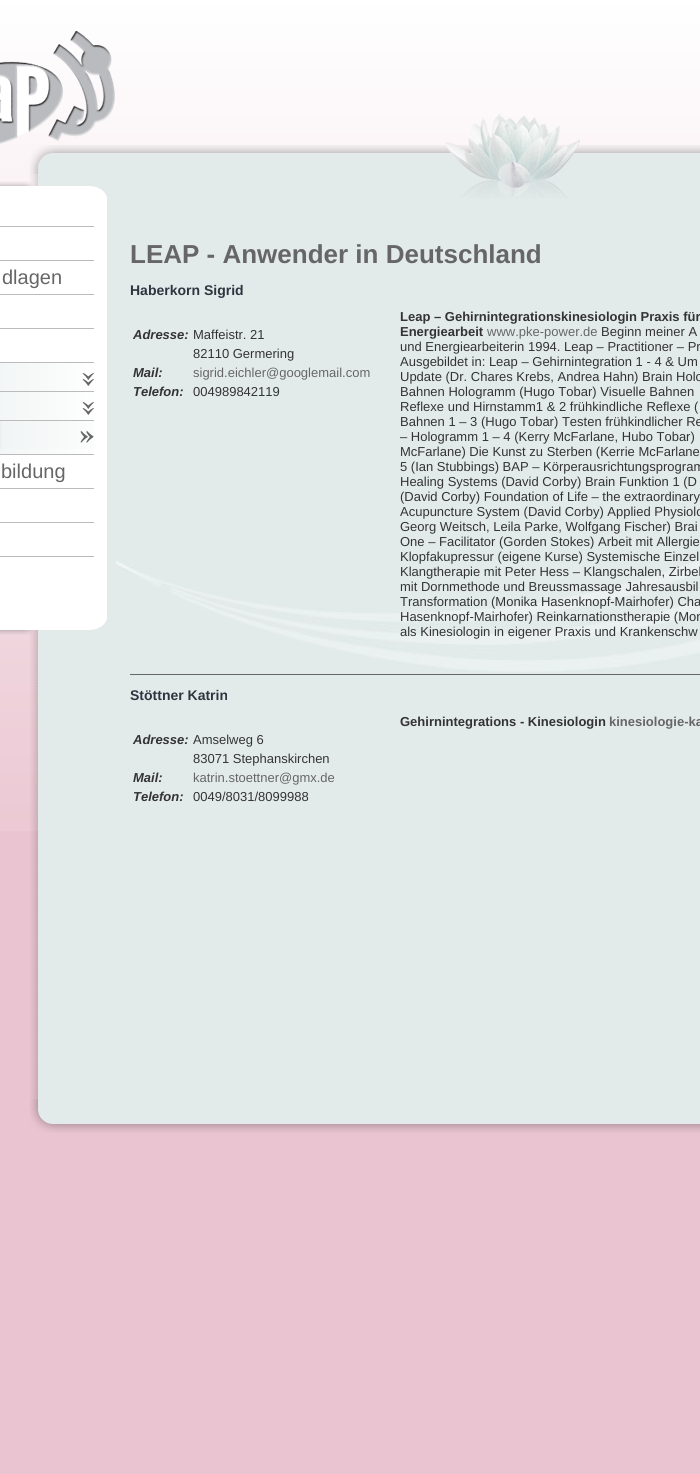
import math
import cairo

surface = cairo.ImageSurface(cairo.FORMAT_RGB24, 700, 1474)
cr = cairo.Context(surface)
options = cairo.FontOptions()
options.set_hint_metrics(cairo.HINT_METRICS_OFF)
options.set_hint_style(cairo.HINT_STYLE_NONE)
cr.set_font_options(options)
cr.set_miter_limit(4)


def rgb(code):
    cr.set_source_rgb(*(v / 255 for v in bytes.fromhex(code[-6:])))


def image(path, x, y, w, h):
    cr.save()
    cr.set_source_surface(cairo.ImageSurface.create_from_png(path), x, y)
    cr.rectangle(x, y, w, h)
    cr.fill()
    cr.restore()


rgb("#eac4d1")
cr.paint()
image("img/1.png", 0, 0, 700, 831)
image("img/2.png", 0, 31, 115, 114)
image("img/10.png", 30, 145, 670, 29)
image("img/11.png", 30, 174, 670, 925)
image("img/3.png", 445, 114, 135, 85)
image("img/4.png", 0, 181, 107, 24)
for x, y, w, h, color in [
    (0, 205, 107, 406, "#ffffff"),
    (0, 226, 94, 1, "#bbbbbb"),
    (0, 260, 94, 1, "#bbbbbb"),
    (0, 294, 94, 1, "#bbbbbb"),
    (0, 328, 94, 1, "#bbbbbb"),
]:
    rgb(color)
    cr.rectangle(x, y, w, h)
    cr.fill()
image("img/5.png", 0, 363, 94, 91)
cr.rectangle(0, 362, 94, 1)
cr.fill()
image("img/6.png", 82, 373, 12, 13)
cr.rectangle(0, 391, 94, 1)
cr.fill()
image("img/6.png", 82, 402, 12, 13)
rgb("#ecf2f2")
cr.rectangle(0, 421, 2, 28)
cr.fill()
image("img/7.png", 2, 421, 92, 28)
rgb("#bbbbbb")
cr.rectangle(0, 420, 94, 1)
cr.fill()
image("img/8.png", 80, 431, 14, 12)
for x, y, w, h, color in [
    (0, 454, 94, 1, "#bbbbbb"),
    (0, 488, 94, 1, "#bbbbbb"),
    (0, 522, 94, 1, "#bbbbbb"),
    (0, 556, 94, 1, "#bbbbbb"),
]:
    rgb(color)
    cr.rectangle(x, y, w, h)
    cr.fill()
image("img/9.png", 0, 611, 107, 24)
image("img/12.png", 116, 560, 584, 112)
rgb("#666666")
cr.rectangle(130, 674, 570, 1)
cr.fill()
image("img/13.png", 30, 1099, 670, 34)
cr.select_font_face("Liberation Sans")
cr.set_font_size(20)
cr.move_to(2, 284)
cr.show_text("dlagen")
cr.move_to(1, 478)
cr.show_text("bildung")
cr.select_font_face("Liberation Sans", cairo.FONT_SLANT_NORMAL, cairo.FONT_WEIGHT_BOLD)
cr.set_font_size(26)
cr.move_to(130, 263)
cr.show_text("LEAP - Anwender in Deutschland")
cr.set_font_size(14)
rgb("#2f3540")
cr.move_to(130, 295)
cr.show_text("Haberkorn Sigrid")
cr.select_font_face("Liberation Sans", cairo.FONT_SLANT_ITALIC, cairo.FONT_WEIGHT_BOLD)
cr.set_font_size(13)
rgb("#333333")
cr.move_to(133, 339)
cr.show_text("Adresse:")
cr.select_font_face("Liberation Sans")
cr.move_to(193, 339)
cr.show_text("Maffeistr. 21")
cr.move_to(193, 358)
cr.show_text("82110 Germering")
cr.select_font_face("Liberation Sans", cairo.FONT_SLANT_ITALIC, cairo.FONT_WEIGHT_BOLD)
cr.move_to(133, 377)
cr.show_text("Mail:")
cr.select_font_face("Liberation Sans")
rgb("#666666")
cr.move_to(193, 377)
cr.show_text("sigrid.eichler@googlemail.com")
cr.select_font_face("Liberation Sans", cairo.FONT_SLANT_ITALIC, cairo.FONT_WEIGHT_BOLD)
rgb("#333333")
cr.move_to(133, 396)
cr.show_text("Telefon:")
cr.select_font_face("Liberation Sans")
cr.move_to(193, 396)
cr.show_text("004989842119")
cr.select_font_face("Liberation Sans", cairo.FONT_SLANT_NORMAL, cairo.FONT_WEIGHT_BOLD)
cr.move_to(400, 321)
cr.show_text("Leap – Gehirnintegrationskinesiologin Praxis für")
cr.move_to(400, 336)
cr.show_text("Energiearbeit")
cr.select_font_face("Liberation Sans")
rgb("#666666")
cr.move_to(487, 336)
cr.show_text("www.pke-power.de")
rgb("#333333")
for x, y, s in [
    (601, 336, "Beginn meiner A"),
    (400, 351, "und Energiearbeiterin 1994. Leap – Practitioner – Pr"),
    (400, 366, "Ausgebildet in: Leap – Gehirnintegration 1 - 4 & Um"),
    (400, 381, "Update (Dr. Chares Krebs, Andrea Hahn) Brain Holo"),
    (400, 396, "Bahnen Hologramm (Hugo Tobar) Visuelle Bahnen"),
    (400, 411, "Reflexe und Hirnstamm1 & 2 frühkindliche Reflexe ("),
    (400, 426, "Bahnen 1 – 3 (Hugo Tobar) Testen frühkindlicher Re"),
    (400, 441, "– Hologramm 1 – 4 (Kerry McFarlane, Hubo Tobar)"),
    (400, 456, "McFarlane) Die Kunst zu Sterben (Kerrie McFarlane"),
    (400, 471, "5 (Ian Stubbings) BAP – Körperausrichtungsprogram"),
    (400, 486, "Healing Systems (David Corby) Brain Funktion 1 (D"),
    (400, 501, "(David Corby) Foundation of Life – the extraordinary"),
    (400, 516, "Acupuncture System (David Corby) Applied Physiolo"),
    (400, 531, "Georg Weitsch, Leila Parke, Wolfgang Fischer) Brai"),
    (400, 546, "One – Facilitator (Gorden Stokes) Arbeit mit Allergie"),
    (400, 561, "Klopfakupressur (eigene Kurse) Systemische Einzel"),
    (400, 576, "Klangtherapie mit Peter Hess – Klangschalen, Zirbel"),
    (400, 591, "mit Dornmethode und Breussmassage Jahresausbil"),
    (400, 606, "Transformation (Monika Hasenknopf-Mairhofer) Cha"),
    (400, 621, "Hasenknopf-Mairhofer) Reinkarnationstherapie (Mon"),
    (400, 636, "als Kinesiologin in eigener Praxis und Krankenschw"),
]:
    cr.move_to(x, y)
    cr.show_text(s)
cr.select_font_face("Liberation Sans", cairo.FONT_SLANT_NORMAL, cairo.FONT_WEIGHT_BOLD)
cr.set_font_size(14)
rgb("#2f3540")
cr.move_to(130, 700)
cr.show_text("Stöttner Katrin")
cr.set_font_size(13)
rgb("#333333")
cr.move_to(400, 726)
cr.show_text("Gehirnintegrations - Kinesiologin")
rgb("#666666")
cr.move_to(609, 726)
cr.show_text("kinesiologie-ka")
cr.select_font_face("Liberation Sans", cairo.FONT_SLANT_ITALIC, cairo.FONT_WEIGHT_BOLD)
rgb("#333333")
cr.move_to(133, 744)
cr.show_text("Adresse:")
cr.select_font_face("Liberation Sans")
cr.move_to(193, 744)
cr.show_text("Amselweg 6")
cr.move_to(193, 763)
cr.show_text("83071 Stephanskirchen")
cr.select_font_face("Liberation Sans", cairo.FONT_SLANT_ITALIC, cairo.FONT_WEIGHT_BOLD)
cr.move_to(133, 782)
cr.show_text("Mail:")
cr.select_font_face("Liberation Sans")
rgb("#666666")
cr.move_to(193, 782)
cr.show_text("katrin.stoettner@gmx.de")
cr.select_font_face("Liberation Sans", cairo.FONT_SLANT_ITALIC, cairo.FONT_WEIGHT_BOLD)
rgb("#333333")
cr.move_to(133, 801)
cr.show_text("Telefon:")
cr.select_font_face("Liberation Sans")
cr.move_to(193, 801)
cr.show_text("0049/8031/8099988")
surface.write_to_png("page.png")
